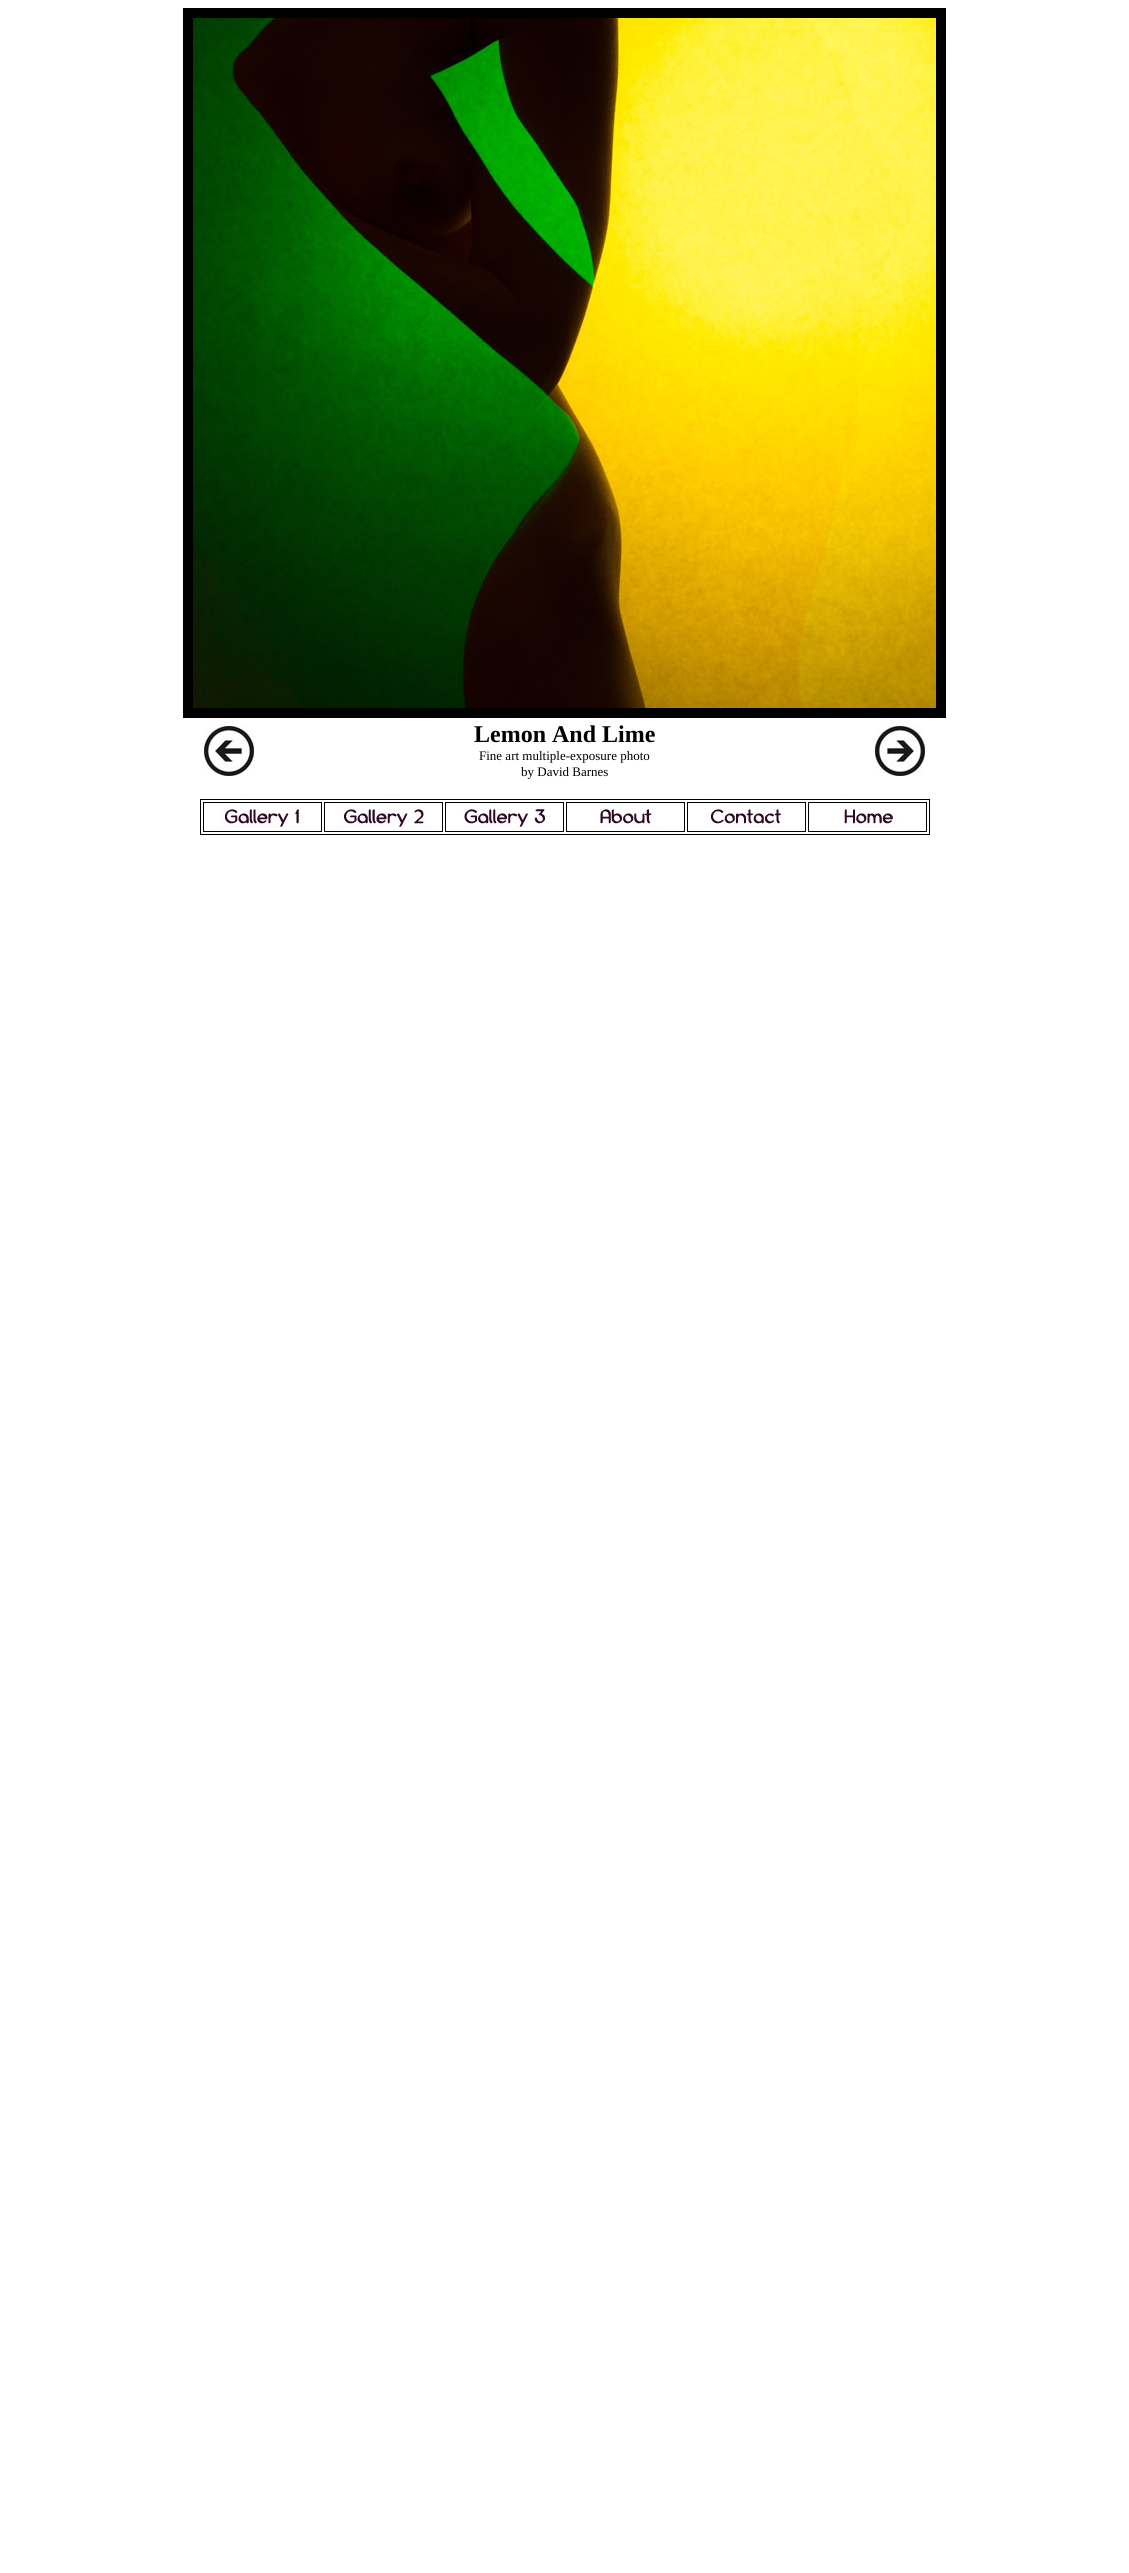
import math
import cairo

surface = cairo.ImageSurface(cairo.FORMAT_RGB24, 1129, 2573)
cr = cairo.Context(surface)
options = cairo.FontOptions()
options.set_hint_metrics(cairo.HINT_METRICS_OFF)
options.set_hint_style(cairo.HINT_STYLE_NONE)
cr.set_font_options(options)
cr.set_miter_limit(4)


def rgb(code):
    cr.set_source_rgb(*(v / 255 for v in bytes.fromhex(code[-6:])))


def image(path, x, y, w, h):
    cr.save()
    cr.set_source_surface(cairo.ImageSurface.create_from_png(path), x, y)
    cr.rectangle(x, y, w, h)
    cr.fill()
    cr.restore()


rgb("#ffffff")
cr.paint()
cr.rectangle(188, 13, 753, 700)
rgb("#000000")
cr.set_line_width(10)
cr.stroke()
image("img/1.png", 193, 18, 743, 690)
image("img/2.png", 204, 726, 50, 50)
image("img/3.png", 875, 726, 50, 50)
cr.rectangle(200.5, 799.5, 729, 35)
cr.set_line_width(1)
cr.stroke()
cr.rectangle(203.5, 802.5, 118, 29)
cr.stroke()
image("img/4.png", 221, 805, 80, 23)
cr.rectangle(324.5, 802.5, 118, 29)
cr.stroke()
image("img/5.png", 342, 804, 87, 24)
cr.rectangle(445.5, 802.5, 118, 29)
cr.stroke()
image("img/6.png", 463, 804, 88, 24)
cr.rectangle(566.5, 802.5, 118, 29)
cr.stroke()
image("img/7.png", 600, 804, 56, 24)
cr.rectangle(687.5, 802.5, 118, 29)
cr.stroke()
image("img/8.png", 705, 804, 80, 24)
cr.rectangle(808.5, 802.5, 118, 29)
cr.stroke()
image("img/9.png", 842, 804, 55, 24)
cr.select_font_face("Liberation Serif", cairo.FONT_SLANT_NORMAL, cairo.FONT_WEIGHT_BOLD)
cr.set_font_size(24)
cr.move_to(474, 742)
cr.show_text("Lemon And Lime")
cr.select_font_face("Liberation Serif")
cr.set_font_size(13)
cr.move_to(479, 760)
cr.show_text("Fine art multiple-exposure photo")
cr.move_to(521, 776)
cr.show_text("by David Barnes")
surface.write_to_png("page.png")
